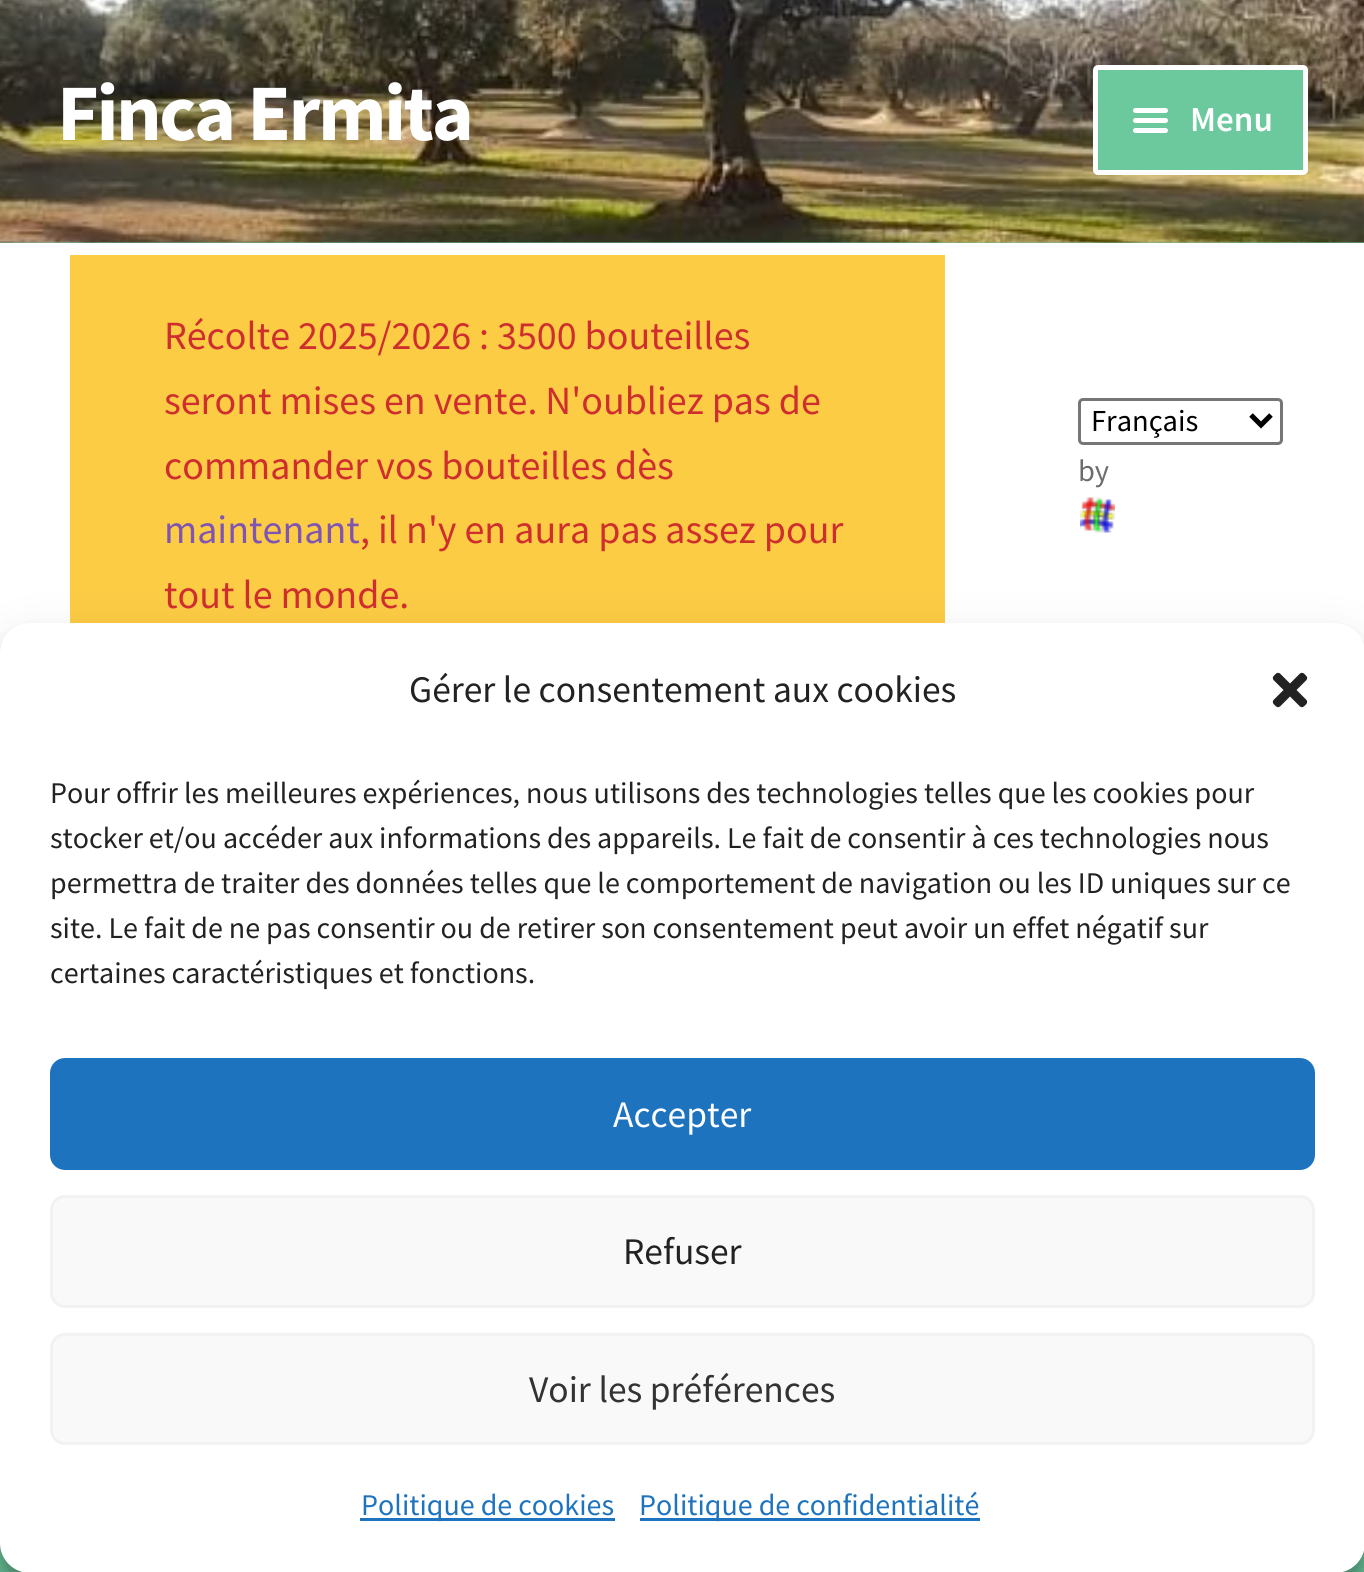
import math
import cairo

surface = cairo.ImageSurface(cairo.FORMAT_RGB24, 1364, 1572)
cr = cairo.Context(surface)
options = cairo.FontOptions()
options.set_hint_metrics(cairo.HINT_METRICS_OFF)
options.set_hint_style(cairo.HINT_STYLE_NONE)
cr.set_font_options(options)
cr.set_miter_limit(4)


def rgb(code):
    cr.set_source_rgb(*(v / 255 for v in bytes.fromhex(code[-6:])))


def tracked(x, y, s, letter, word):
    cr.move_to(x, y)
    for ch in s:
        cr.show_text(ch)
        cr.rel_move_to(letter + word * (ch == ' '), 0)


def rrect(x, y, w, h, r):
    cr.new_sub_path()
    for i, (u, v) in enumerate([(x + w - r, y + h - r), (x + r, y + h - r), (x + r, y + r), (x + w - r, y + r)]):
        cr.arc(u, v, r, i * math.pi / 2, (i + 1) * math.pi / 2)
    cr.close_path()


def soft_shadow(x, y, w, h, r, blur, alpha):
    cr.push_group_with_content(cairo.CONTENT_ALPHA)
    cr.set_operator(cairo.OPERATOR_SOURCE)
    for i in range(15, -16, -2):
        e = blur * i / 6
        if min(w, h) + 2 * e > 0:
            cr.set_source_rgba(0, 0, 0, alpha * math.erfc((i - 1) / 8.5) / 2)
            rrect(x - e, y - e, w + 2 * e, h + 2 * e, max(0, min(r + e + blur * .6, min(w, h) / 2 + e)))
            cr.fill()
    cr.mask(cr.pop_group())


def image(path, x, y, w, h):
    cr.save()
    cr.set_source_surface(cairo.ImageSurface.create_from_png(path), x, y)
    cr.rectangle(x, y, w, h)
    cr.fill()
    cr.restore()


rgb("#ffffff")
cr.paint()
rgb("#6cc99e")
cr.rectangle(0, 242, 1364, 1)
cr.fill()
image("img/1.png", 0, 0, 1364, 243)
rrect(1095.5, 67.5, 210, 105, 2.5)
cr.fill_preserve()
rgb("#ffffff")
cr.set_line_width(5)
cr.stroke()
rrect(1133, 108, 35, 5, 2.5)
cr.fill()
rrect(1133, 118, 35, 5, 2.5)
cr.fill()
rrect(1133, 128, 35, 5, 2.5)
cr.fill()
rgb("#fdcc45")
cr.rectangle(70, 255, 875, 368)
cr.fill()
rrect(1079.5, 399.5, 202, 44, 3.5)
rgb("#767676")
cr.set_line_width(3)
cr.stroke()
cr.new_path()
cr.move_to(1251, 415)
cr.line_to(1261, 425)
cr.line_to(1271, 415)
rgb("#000000")
cr.set_line_width(5)
cr.stroke()
image("img/2.png", 1080, 497, 35, 36)
rgb("#6cc99e")
cr.rectangle(0, 1543, 23, 29)
cr.fill()
cr.rectangle(1342, 1550, 22, 22)
cr.fill()
rgb("#000000")
soft_shadow(0, 638, 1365, 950, 30, 7.5, 0.23)
soft_shadow(0, 648, 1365, 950, 30, 25, 0.19)
rgb("#ffffff")
rrect(0, 623, 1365, 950, 30)
cr.fill()
image("img/3.png", 1272, 672, 36, 36)
rgb("#1e73be")
rrect(51.5, 1059.5, 1262, 109, 13.5)
cr.fill_preserve()
cr.set_line_width(3)
cr.stroke()
rgb("#f9f9f9")
rrect(51.5, 1196.5, 1262, 110, 13.5)
cr.fill_preserve()
rgb("#f2f2f2")
cr.stroke()
rgb("#f9f9f9")
rrect(51.5, 1334.5, 1262, 109, 13.5)
cr.fill_preserve()
rgb("#f2f2f2")
cr.stroke()
rgb("#1e73be")
cr.rectangle(360, 1518, 255, 3)
cr.fill()
cr.rectangle(640, 1518, 340, 3)
cr.fill()
cr.select_font_face("Source Sans Pro", cairo.FONT_SLANT_NORMAL, cairo.FONT_WEIGHT_BOLD)
cr.set_font_size(80)
rgb("#ffffff")
tracked(57, 140, "Finca Ermita", -2.5, 0)
cr.select_font_face("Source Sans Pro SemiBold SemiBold")
cr.set_font_size(35)
cr.move_to(1190, 131)
cr.show_text("Menu")
cr.select_font_face("Source Sans Pro")
cr.set_font_size(40)
rgb("#cf2e2e")
for x, y, s in [
    (164, 349, "Récolte 2025/2026 : 3500 bouteilles"),
    (164, 414, "seront mises en vente. N'oubliez pas de"),
    (164, 479, "commander vos bouteilles dès"),
]:
    cr.move_to(x, y)
    cr.show_text(s)
rgb("#7f54b3")
cr.move_to(164, 543)
cr.show_text("maintenant")
rgb("#cf2e2e")
cr.move_to(360, 543)
cr.show_text(", il n'y en aura pas assez pour")
cr.move_to(164, 608)
cr.show_text("tout le monde.")
cr.set_font_size(30.5)
rgb("#000000")
cr.move_to(1091, 431)
cr.show_text("Français")
rgb("#6d6d6d")
cr.move_to(1078, 481)
cr.show_text("by")
cr.set_font_size(37.5)
rgb("#222222")
cr.move_to(409, 702)
cr.show_text("Gérer le consentement aux cookies")
cr.set_font_size(30)
for x, y, s in [
    (50, 803, "Pour offrir les meilleures expériences, nous utilisons des technologies telles que les cookies pour"),
    (50, 848, "stocker et/ou accéder aux informations des appareils. Le fait de consentir à ces technologies nous"),
    (50, 893, "permettra de traiter des données telles que le comportement de navigation ou les ID uniques sur ce"),
    (50, 938, "site. Le fait de ne pas consentir ou de retirer son consentement peut avoir un effet négatif sur"),
    (50, 983, "certaines caractéristiques et fonctions."),
]:
    cr.move_to(x, y)
    cr.show_text(s)
cr.set_font_size(37.5)
rgb("#ffffff")
cr.move_to(613, 1127)
cr.show_text("Accepter")
rgb("#222222")
cr.move_to(623, 1264)
cr.show_text("Refuser")
rgb("#333333")
cr.move_to(529, 1402)
cr.show_text("Voir les préférences")
cr.set_font_size(30)
rgb("#1e73be")
cr.move_to(361, 1515)
cr.show_text("Politique de cookies")
cr.move_to(639, 1515)
cr.show_text("Politique de confidentialité")
surface.write_to_png("page.png")
